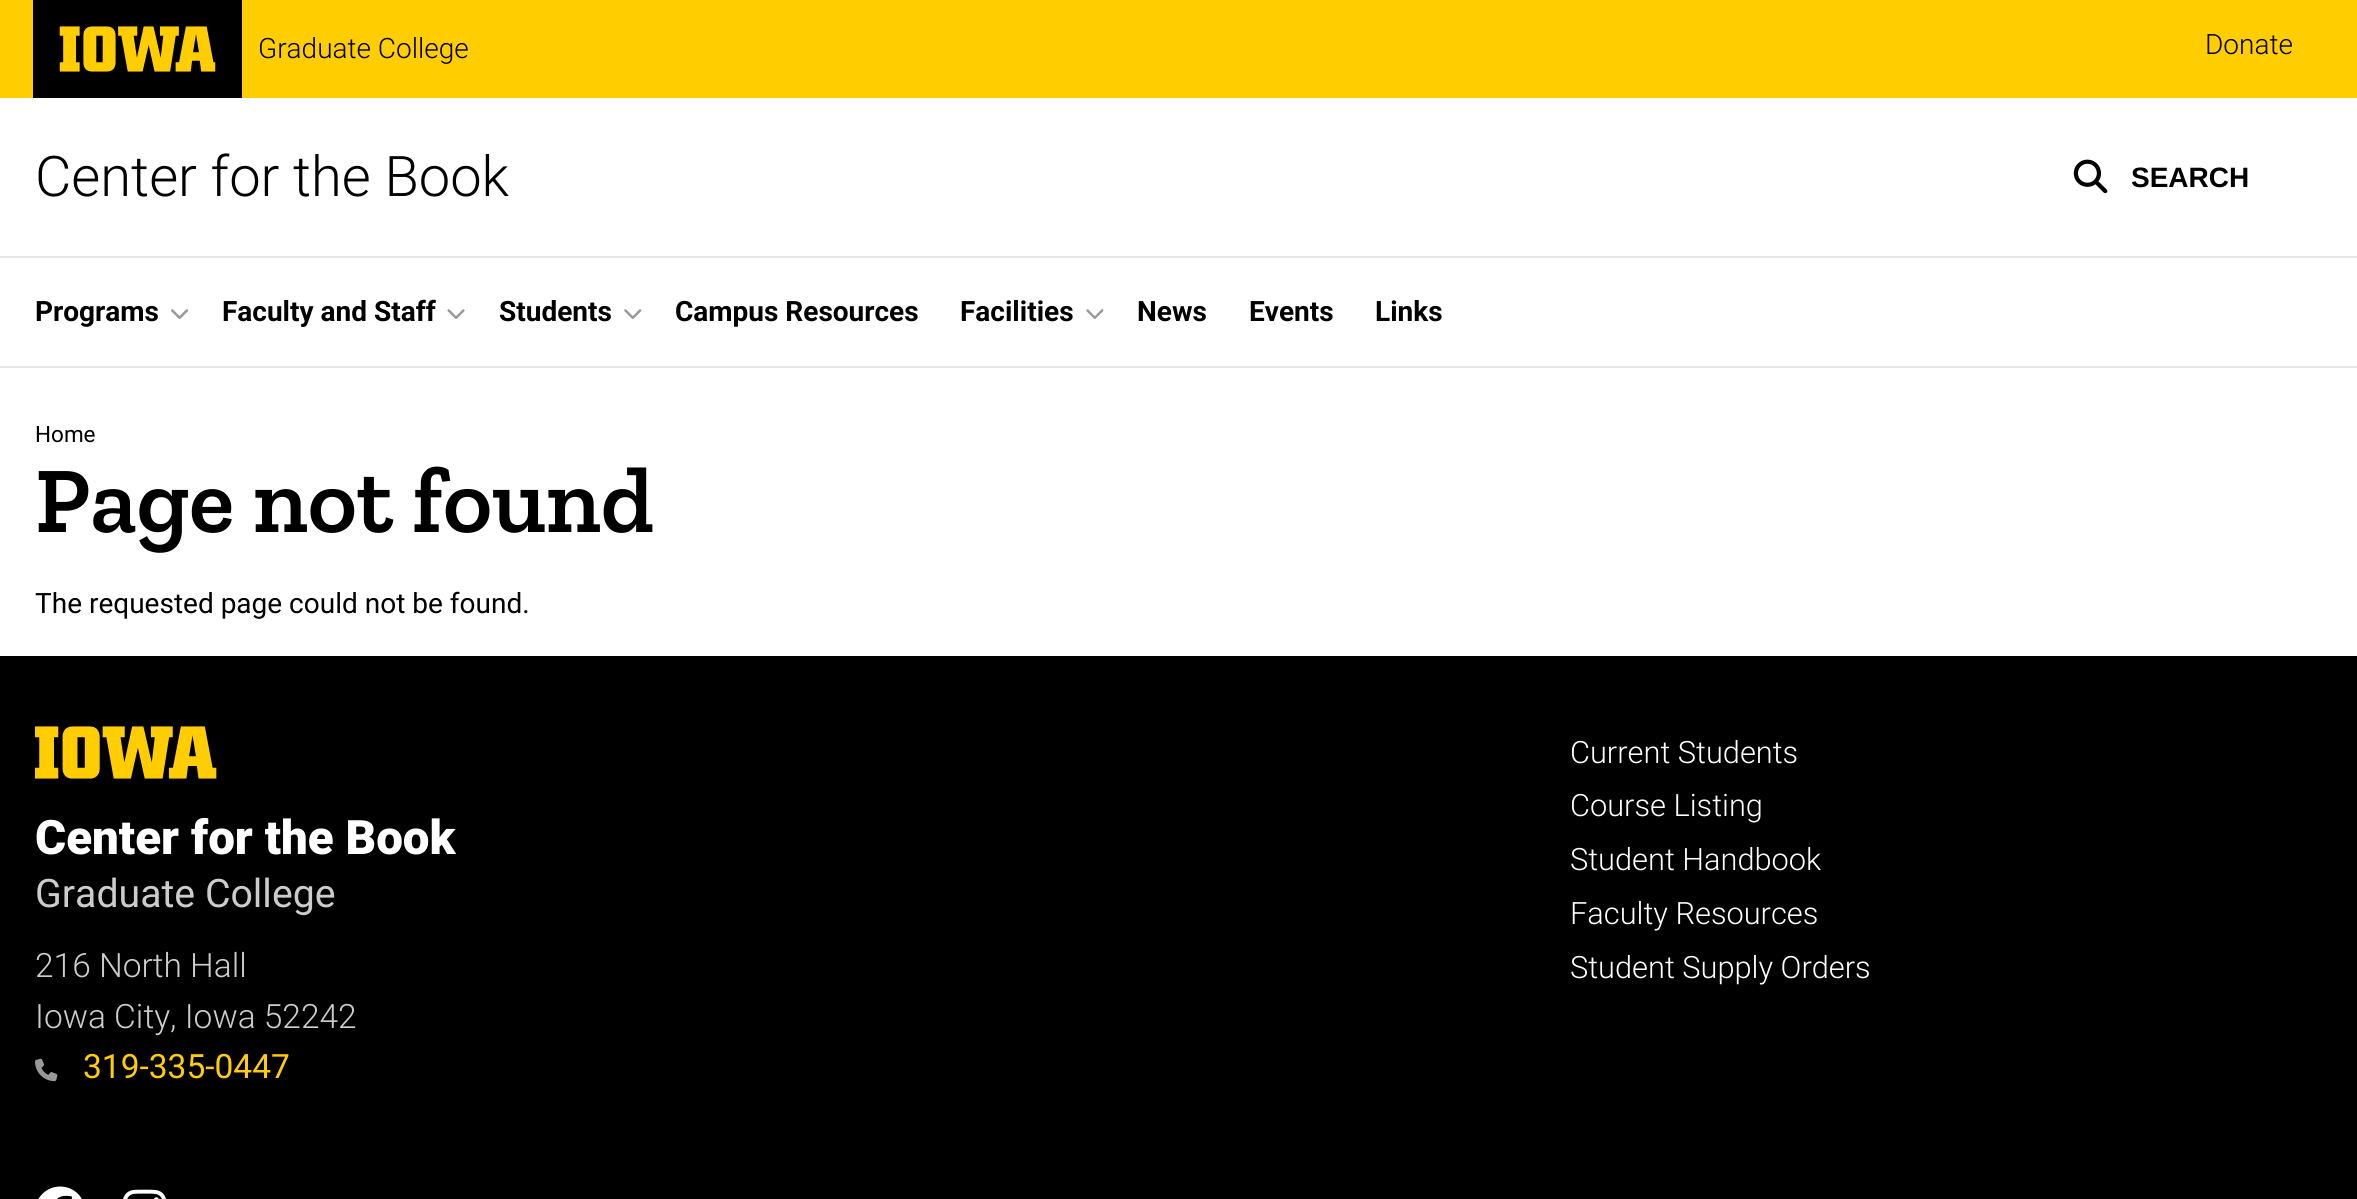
import math
import cairo

surface = cairo.ImageSurface(cairo.FORMAT_RGB24, 2357, 1199)
cr = cairo.Context(surface)
options = cairo.FontOptions()
options.set_hint_metrics(cairo.HINT_METRICS_OFF)
options.set_hint_style(cairo.HINT_STYLE_NONE)
cr.set_font_options(options)
cr.set_miter_limit(4)


def rgb(code):
    cr.set_source_rgb(*(v / 255 for v in bytes.fromhex(code[-6:])))


def image(path, x, y, w, h):
    cr.save()
    cr.set_source_surface(cairo.ImageSurface.create_from_png(path), x, y)
    cr.rectangle(x, y, w, h)
    cr.fill()
    cr.restore()


rgb("#ffffff")
cr.paint()
rgb("#ffcd00")
cr.rectangle(0, 0, 2357, 98)
cr.fill()
rgb("#e6e5e5")
cr.rectangle(0, 256, 2357, 2)
cr.fill()
image("img/1.png", 2073, 159, 35, 35)
rgb("#000000")
cr.rectangle(33, 0, 209, 98)
cr.fill()
image("img/2.png", 59, 26, 157, 46)
rgb("#e6e5e5")
cr.rectangle(0, 366, 2357, 2)
cr.fill()
image("img/3.png", 171, 309, 18, 10)
image("img/4.png", 447, 309, 18, 10)
image("img/5.png", 624, 309, 18, 10)
image("img/5.png", 1086, 309, 18, 10)
rgb("#000000")
cr.rectangle(0, 656, 2357, 543)
cr.fill()
image("img/6.png", 35, 726, 182, 53)
image("img/7.png", 35, 1058, 23, 24)
image("img/8.png", 38, 1186, 44, 13)
image("img/9.png", 123, 1189, 43, 10)
cr.select_font_face("Roboto Light")
cr.set_font_size(28)
cr.move_to(2205, 54)
cr.show_text("Donate")
cr.set_font_size(56)
cr.move_to(35, 196)
cr.show_text("Center for the Book")
cr.select_font_face("Liberation Sans", cairo.FONT_SLANT_NORMAL, cairo.FONT_WEIGHT_BOLD)
cr.set_font_size(28)
cr.move_to(2131, 187)
cr.show_text("SEARCH")
cr.select_font_face("Roboto Light")
cr.move_to(258, 58)
cr.show_text("Graduate College")
cr.select_font_face("Roboto", cairo.FONT_SLANT_NORMAL, cairo.FONT_WEIGHT_BOLD)
for x, y, s in [
    (35, 321, "Programs"),
    (222, 321, "Faculty and Staff"),
    (499, 321, "Students"),
    (675, 321, "Campus Resources"),
    (960, 321, "Facilities"),
    (1137, 321, "News"),
    (1249, 321, "Events"),
    (1375, 321, "Links"),
]:
    cr.move_to(x, y)
    cr.show_text(s)
cr.select_font_face("Roboto")
cr.set_font_size(22.5)
cr.move_to(35, 442)
cr.show_text("Home")
cr.select_font_face("Zilla Slab SemiBold")
cr.set_font_size(93.75)
cr.move_to(35, 532)
cr.show_text("Page not found")
cr.select_font_face("Roboto")
cr.set_font_size(28)
cr.move_to(35, 613)
cr.show_text("The requested page could not be found.")
cr.select_font_face("Roboto Black")
cr.set_font_size(47.5)
rgb("#ffffff")
cr.move_to(35, 854)
cr.show_text("Center for the Book")
cr.select_font_face("Roboto")
cr.set_font_size(39.25)
rgb("#cccccc")
cr.move_to(35, 907)
cr.show_text("Graduate College")
cr.select_font_face("Roboto Light")
cr.set_font_size(33.5)
cr.move_to(35, 977)
cr.show_text("216 North Hall")
cr.move_to(35, 1028)
cr.show_text("Iowa City, Iowa 52242")
cr.select_font_face("Roboto")
rgb("#ffcd00")
cr.move_to(83, 1078)
cr.show_text("319-335-0447")
cr.select_font_face("Roboto Light")
cr.set_font_size(30.75)
rgb("#ffffff")
for x, y, s in [
    (1570, 763, "Current Students"),
    (1570, 816, "Course Listing"),
    (1570, 870, "Student Handbook"),
    (1570, 924, "Faculty Resources"),
    (1570, 978, "Student Supply Orders"),
]:
    cr.move_to(x, y)
    cr.show_text(s)
surface.write_to_png("page.png")
